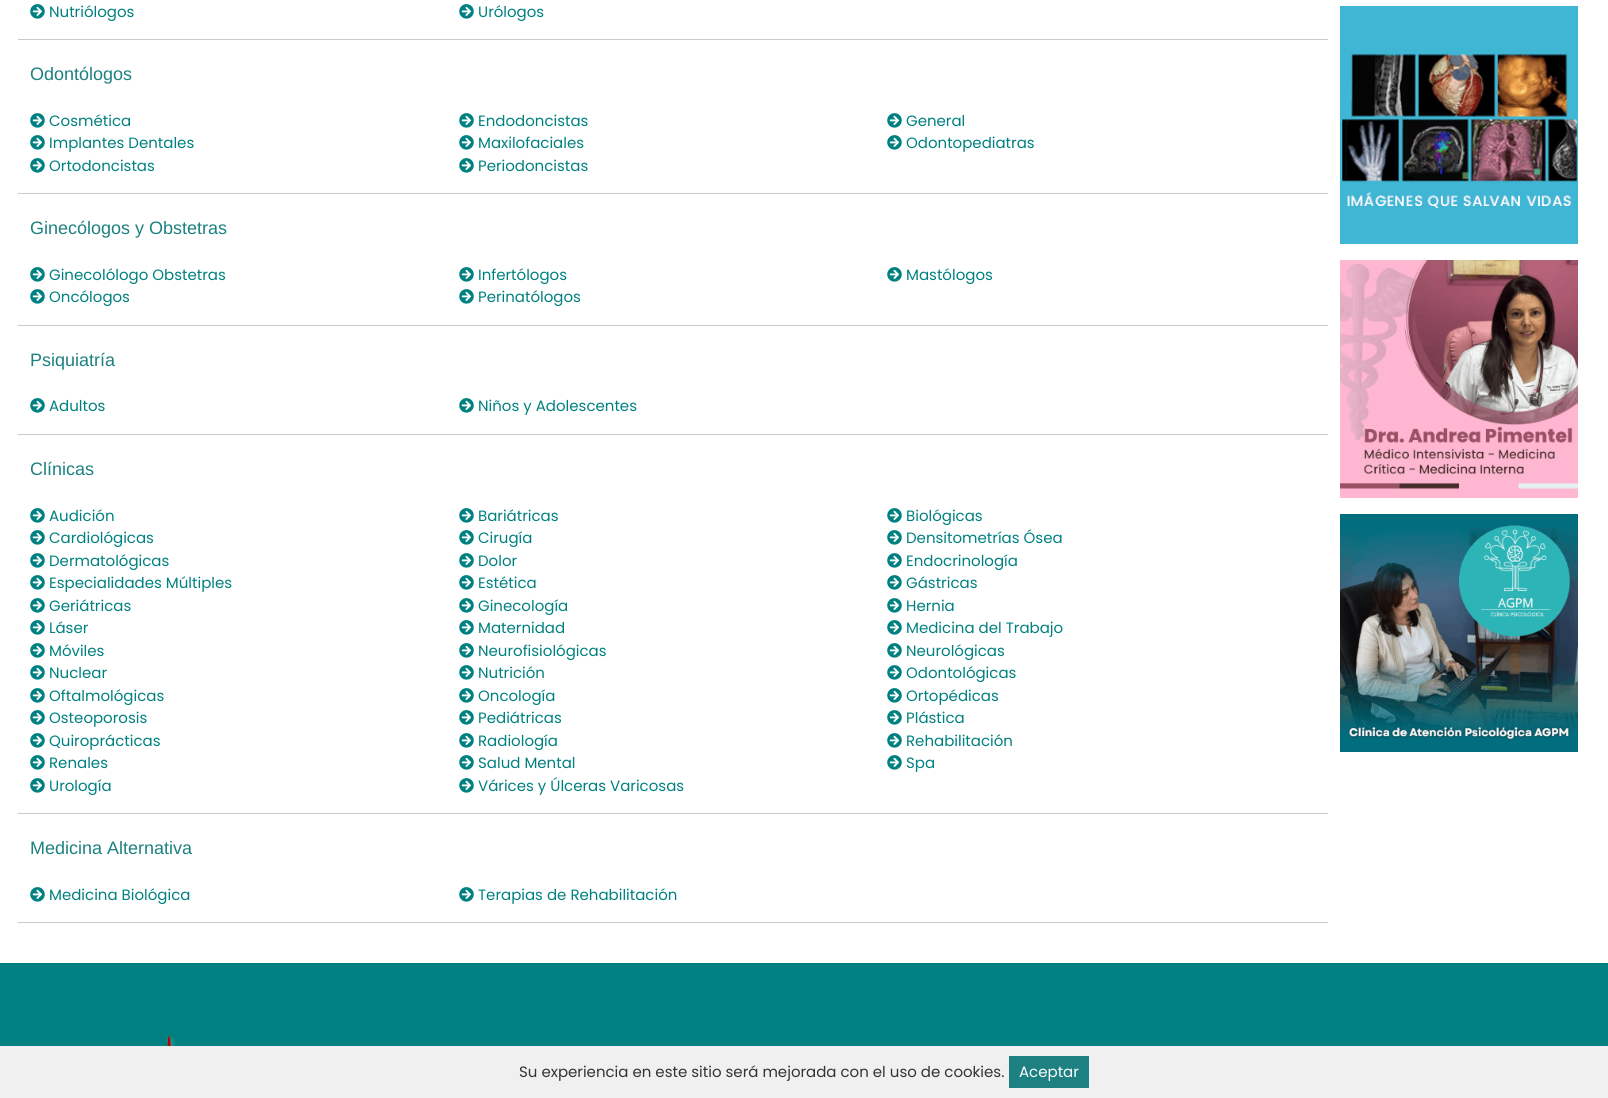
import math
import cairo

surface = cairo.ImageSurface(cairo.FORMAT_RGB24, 1608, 1098)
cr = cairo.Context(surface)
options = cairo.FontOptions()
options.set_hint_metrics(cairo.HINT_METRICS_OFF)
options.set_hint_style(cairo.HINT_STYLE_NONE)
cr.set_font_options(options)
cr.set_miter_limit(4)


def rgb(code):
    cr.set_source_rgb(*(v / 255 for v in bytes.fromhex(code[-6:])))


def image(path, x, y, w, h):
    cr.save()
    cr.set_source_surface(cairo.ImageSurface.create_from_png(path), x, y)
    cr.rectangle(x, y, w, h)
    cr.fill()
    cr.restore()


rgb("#ffffff")
cr.paint()
image("img/1.png", 30, 4, 15, 15)
image("img/1.png", 459, 4, 15, 15)
rgb("#c9cad0")
cr.rectangle(18, 39, 1310, 1)
cr.fill()
image("img/1.png", 30, 113, 15, 15)
image("img/1.png", 459, 113, 15, 15)
image("img/1.png", 887, 113, 15, 15)
image("img/1.png", 30, 135, 15, 15)
image("img/1.png", 459, 135, 15, 15)
image("img/1.png", 887, 135, 15, 15)
image("img/1.png", 30, 158, 15, 15)
image("img/1.png", 459, 158, 15, 15)
cr.rectangle(18, 193, 1310, 1)
cr.fill()
image("img/1.png", 30, 267, 15, 15)
image("img/1.png", 459, 267, 15, 15)
image("img/1.png", 887, 267, 15, 15)
image("img/1.png", 30, 289, 15, 15)
image("img/1.png", 459, 289, 15, 15)
cr.rectangle(18, 325, 1310, 1)
cr.fill()
image("img/1.png", 30, 398, 15, 15)
image("img/1.png", 459, 398, 15, 15)
cr.rectangle(18, 434, 1310, 1)
cr.fill()
image("img/1.png", 30, 508, 15, 15)
image("img/1.png", 459, 508, 15, 15)
image("img/1.png", 887, 508, 15, 15)
image("img/1.png", 30, 530, 15, 15)
image("img/1.png", 459, 530, 15, 15)
image("img/1.png", 887, 530, 15, 15)
image("img/1.png", 30, 553, 15, 15)
image("img/1.png", 459, 553, 15, 15)
image("img/1.png", 887, 553, 15, 15)
image("img/1.png", 30, 575, 15, 15)
image("img/1.png", 459, 575, 15, 15)
image("img/1.png", 887, 575, 15, 15)
image("img/1.png", 30, 598, 15, 15)
image("img/1.png", 459, 598, 15, 15)
image("img/1.png", 887, 598, 15, 15)
image("img/1.png", 30, 620, 15, 15)
image("img/1.png", 459, 620, 15, 15)
image("img/1.png", 887, 620, 15, 15)
image("img/1.png", 30, 643, 15, 15)
image("img/1.png", 459, 643, 15, 15)
image("img/1.png", 887, 643, 15, 15)
image("img/1.png", 30, 665, 15, 15)
image("img/1.png", 459, 665, 15, 15)
image("img/1.png", 887, 665, 15, 15)
image("img/1.png", 30, 688, 15, 15)
image("img/1.png", 459, 688, 15, 15)
image("img/1.png", 887, 688, 15, 15)
image("img/1.png", 30, 710, 15, 15)
image("img/1.png", 459, 710, 15, 15)
image("img/1.png", 887, 710, 15, 15)
image("img/1.png", 30, 733, 15, 15)
image("img/1.png", 459, 733, 15, 15)
image("img/1.png", 887, 733, 15, 15)
image("img/1.png", 30, 755, 15, 15)
image("img/1.png", 459, 755, 15, 15)
image("img/1.png", 887, 755, 15, 15)
image("img/1.png", 30, 778, 15, 15)
image("img/1.png", 459, 778, 15, 15)
cr.rectangle(18, 813, 1310, 1)
cr.fill()
image("img/1.png", 30, 887, 15, 15)
image("img/1.png", 459, 887, 15, 15)
cr.rectangle(18, 922, 1310, 1)
cr.fill()
image("img/2.png", 1340, 6, 238, 238)
image("img/3.png", 1340, 260, 238, 238)
image("img/4.png", 1340, 514, 238, 238)
rgb("#008080")
cr.rectangle(0, 963, 1608, 83)
cr.fill()
image("img/5.png", 167, 1036, 9, 10)
rgb("#f0f0f0")
cr.rectangle(0, 1046, 1608, 52)
cr.fill()
rgb("#1c8180")
cr.rectangle(1009, 1056, 80, 32)
cr.fill()
cr.select_font_face("Poppins")
cr.set_font_size(15)
rgb("#008080")
cr.move_to(49, 17)
cr.show_text("Nutriólogos")
cr.move_to(478, 17)
cr.show_text("Urólogos")
cr.select_font_face("Liberation Sans")
cr.set_font_size(18)
rgb("#1c8180")
cr.move_to(30, 80)
cr.show_text("Odontólogos")
cr.select_font_face("Poppins")
cr.set_font_size(15)
rgb("#008080")
for x, y, s in [
    (49, 126, "Cosmética"),
    (478, 126, "Endodoncistas"),
    (906, 126, "General"),
    (49, 148, "Implantes Dentales"),
    (478, 148, "Maxilofaciales"),
    (906, 148, "Odontopediatras"),
    (49, 171, "Ortodoncistas"),
    (478, 171, "Periodoncistas"),
]:
    cr.move_to(x, y)
    cr.show_text(s)
cr.select_font_face("Liberation Sans")
cr.set_font_size(18)
rgb("#1c8180")
cr.move_to(30, 234)
cr.show_text("Ginecólogos y Obstetras")
cr.select_font_face("Poppins")
cr.set_font_size(15)
rgb("#008080")
for x, y, s in [
    (49, 280, "Ginecolólogo Obstetras"),
    (478, 280, "Infertólogos"),
    (906, 280, "Mastólogos"),
    (49, 302, "Oncólogos"),
    (478, 302, "Perinatólogos"),
]:
    cr.move_to(x, y)
    cr.show_text(s)
cr.select_font_face("Liberation Sans")
cr.set_font_size(18)
rgb("#1c8180")
cr.move_to(30, 366)
cr.show_text("Psiquiatría")
cr.select_font_face("Poppins")
cr.set_font_size(15)
rgb("#008080")
cr.move_to(49, 411)
cr.show_text("Adultos")
cr.move_to(478, 411)
cr.show_text("Niños y Adolescentes")
cr.select_font_face("Liberation Sans")
cr.set_font_size(18)
rgb("#1c8180")
cr.move_to(30, 475)
cr.show_text("Clínicas")
cr.select_font_face("Poppins")
cr.set_font_size(15)
rgb("#008080")
for x, y, s in [
    (49, 521, "Audición"),
    (478, 521, "Bariátricas"),
    (906, 521, "Biológicas"),
    (49, 543, "Cardiológicas"),
    (478, 543, "Cirugía"),
    (906, 543, "Densitometrías Ósea"),
    (49, 566, "Dermatológicas"),
    (478, 566, "Dolor"),
    (906, 566, "Endocrinología"),
    (49, 588, "Especialidades Múltiples"),
    (478, 588, "Estética"),
    (906, 588, "Gástricas"),
    (49, 611, "Geriátricas"),
    (478, 611, "Ginecología"),
    (906, 611, "Hernia"),
    (49, 633, "Láser"),
    (478, 633, "Maternidad"),
    (906, 633, "Medicina del Trabajo"),
    (49, 656, "Móviles"),
    (478, 656, "Neurofisiológicas"),
    (906, 656, "Neurológicas"),
    (49, 678, "Nuclear"),
    (478, 678, "Nutrición"),
    (906, 678, "Odontológicas"),
    (49, 701, "Oftalmológicas"),
    (478, 701, "Oncología"),
    (906, 701, "Ortopédicas"),
    (49, 723, "Osteoporosis"),
    (478, 723, "Pediátricas"),
    (906, 723, "Plástica"),
    (49, 746, "Quiroprácticas"),
    (478, 746, "Radiología"),
    (906, 746, "Rehabilitación"),
    (49, 768, "Renales"),
    (478, 768, "Salud Mental"),
    (906, 768, "Spa"),
    (49, 791, "Urología"),
    (478, 791, "Várices y Úlceras Varicosas"),
]:
    cr.move_to(x, y)
    cr.show_text(s)
cr.select_font_face("Liberation Sans")
cr.set_font_size(18)
rgb("#1c8180")
cr.move_to(30, 854)
cr.show_text("Medicina Alternativa")
cr.select_font_face("Poppins")
cr.set_font_size(15)
rgb("#008080")
cr.move_to(49, 900)
cr.show_text("Medicina Biológica")
cr.move_to(478, 900)
cr.show_text("Terapias de Rehabilitación")
rgb("#333333")
cr.move_to(519, 1077)
cr.show_text("Su experiencia en este sitio será mejorada con el uso de cookies.")
rgb("#ffffff")
cr.move_to(1019, 1077)
cr.show_text("Aceptar")
surface.write_to_png("page.png")
